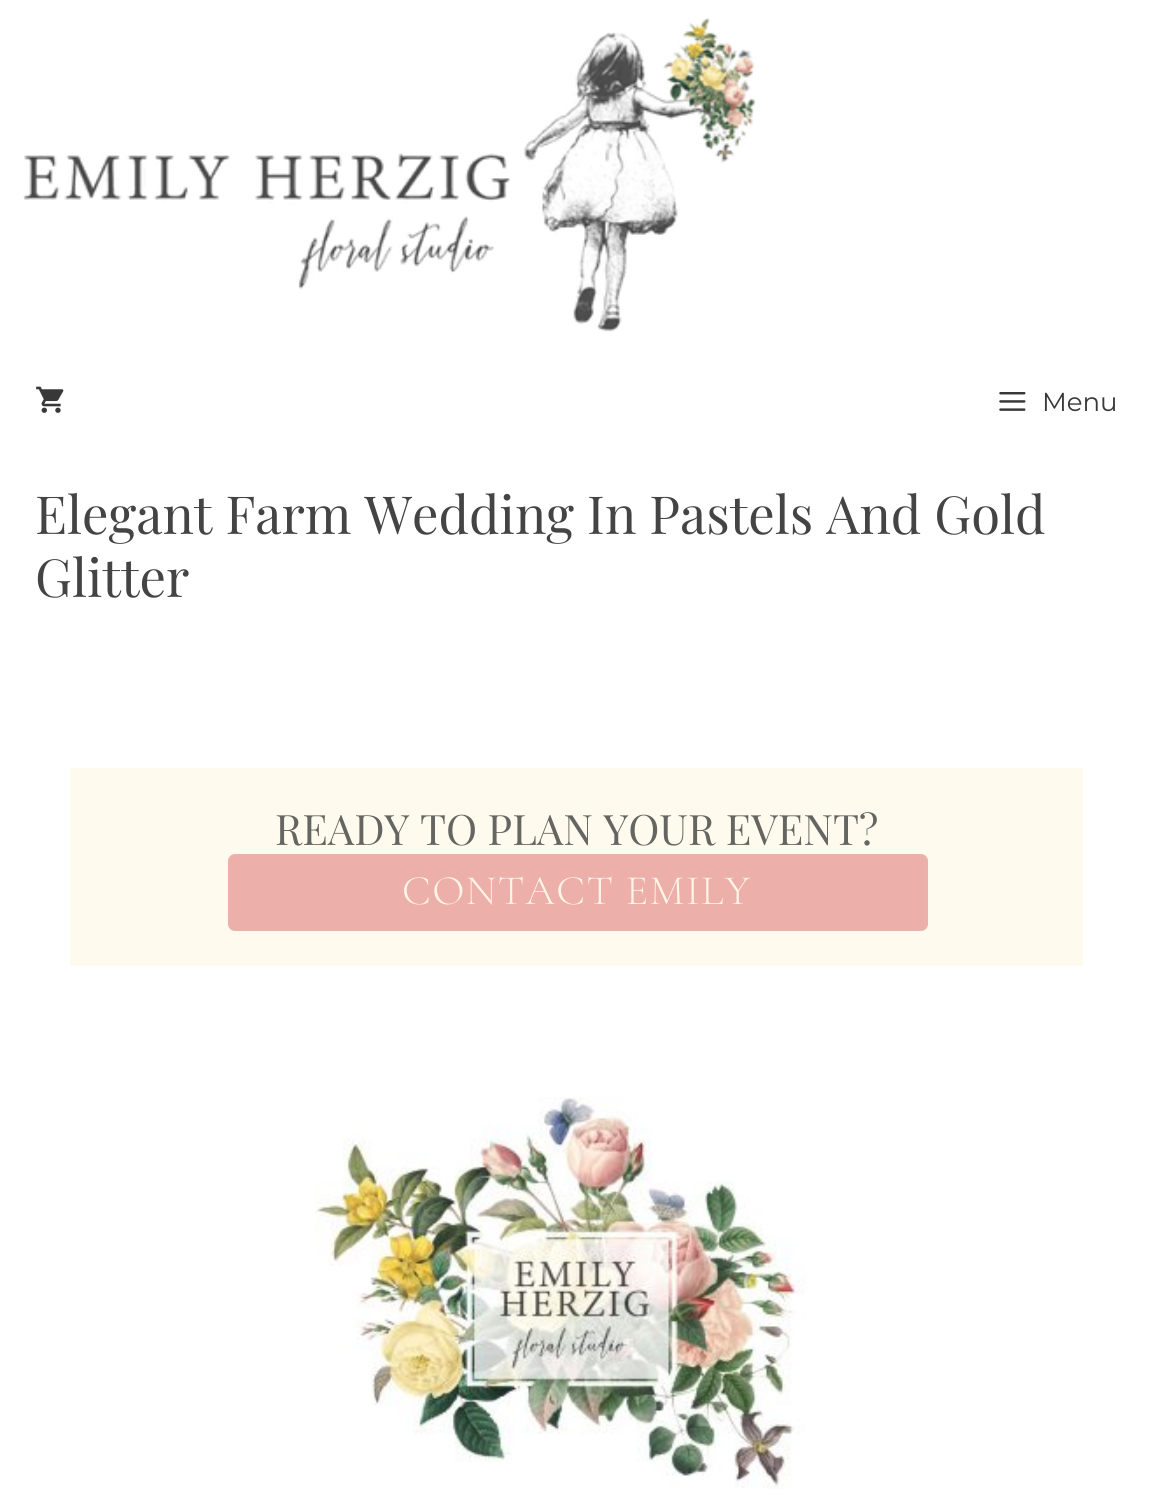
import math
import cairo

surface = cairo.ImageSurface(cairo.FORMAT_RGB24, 1153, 1498)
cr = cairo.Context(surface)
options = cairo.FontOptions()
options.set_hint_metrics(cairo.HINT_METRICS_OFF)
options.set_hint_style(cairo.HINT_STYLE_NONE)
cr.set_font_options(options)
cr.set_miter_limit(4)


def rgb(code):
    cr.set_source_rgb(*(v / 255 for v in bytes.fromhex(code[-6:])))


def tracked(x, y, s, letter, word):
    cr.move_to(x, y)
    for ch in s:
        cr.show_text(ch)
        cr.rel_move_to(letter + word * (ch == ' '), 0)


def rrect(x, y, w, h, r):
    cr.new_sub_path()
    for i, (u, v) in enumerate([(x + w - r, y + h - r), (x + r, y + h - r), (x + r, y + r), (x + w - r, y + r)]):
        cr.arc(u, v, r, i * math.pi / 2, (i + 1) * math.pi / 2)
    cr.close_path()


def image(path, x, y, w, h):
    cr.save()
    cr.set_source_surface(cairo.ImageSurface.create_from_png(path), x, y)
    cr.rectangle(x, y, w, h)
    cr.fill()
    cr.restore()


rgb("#ffffff")
cr.paint()
image("img/1.png", 23, 17, 733, 315)
image("img/2.png", 36, 386, 28, 27)
image("img/3.png", 999, 392, 27, 19)
rgb("#fefbee")
cr.rectangle(70, 768, 1013, 198)
cr.fill()
rgb("#ecafaa")
rrect(229, 855, 698, 75, 6)
cr.fill_preserve()
rgb("#e9b2aa")
cr.stroke()
image("img/4.png", 315, 1097, 491, 392)
cr.select_font_face("Montserrat")
cr.set_font_size(26)
rgb("#383838")
cr.move_to(1042, 411)
cr.show_text("Menu")
cr.select_font_face("Playfair Display")
cr.set_font_size(52.5)
rgb("#444444")
cr.move_to(35, 534)
cr.show_text("Elegant Farm Wedding In Pastels And Gold")
cr.move_to(35, 597)
cr.show_text("Glitter")
cr.set_font_size(42)
rgb("#656562")
cr.move_to(275, 845)
cr.show_text("READY TO PLAN YOUR EVENT?")
cr.select_font_face("Cormorant Garamond Light")
rgb("#fff5e7")
tracked(402, 904, "CONTACT EMILY", 1.4, 0)
surface.write_to_png("page.png")
